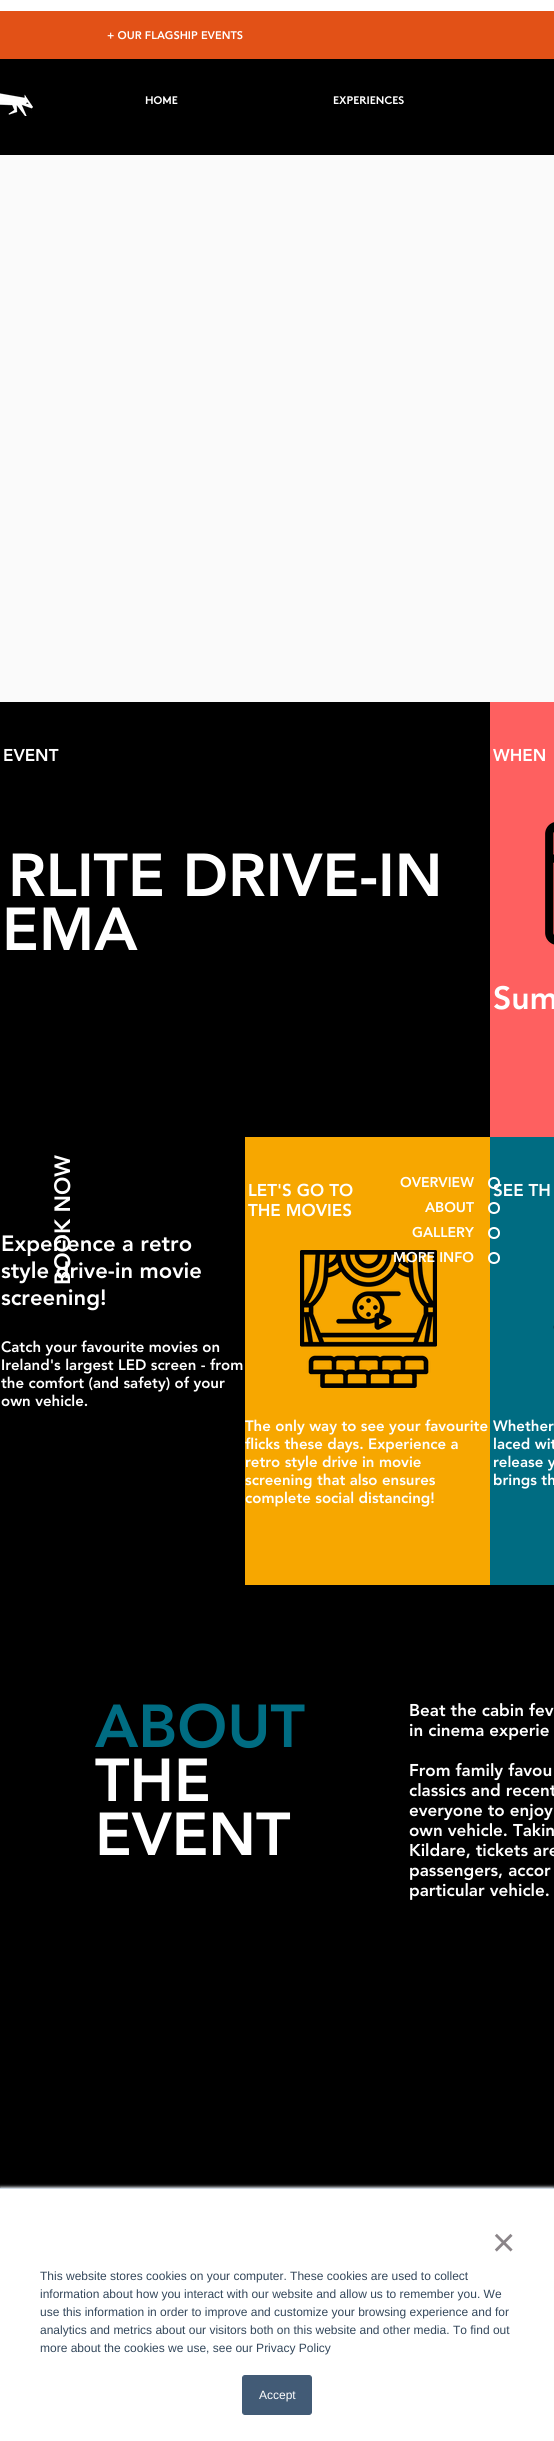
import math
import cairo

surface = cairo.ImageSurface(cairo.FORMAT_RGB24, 554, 2441)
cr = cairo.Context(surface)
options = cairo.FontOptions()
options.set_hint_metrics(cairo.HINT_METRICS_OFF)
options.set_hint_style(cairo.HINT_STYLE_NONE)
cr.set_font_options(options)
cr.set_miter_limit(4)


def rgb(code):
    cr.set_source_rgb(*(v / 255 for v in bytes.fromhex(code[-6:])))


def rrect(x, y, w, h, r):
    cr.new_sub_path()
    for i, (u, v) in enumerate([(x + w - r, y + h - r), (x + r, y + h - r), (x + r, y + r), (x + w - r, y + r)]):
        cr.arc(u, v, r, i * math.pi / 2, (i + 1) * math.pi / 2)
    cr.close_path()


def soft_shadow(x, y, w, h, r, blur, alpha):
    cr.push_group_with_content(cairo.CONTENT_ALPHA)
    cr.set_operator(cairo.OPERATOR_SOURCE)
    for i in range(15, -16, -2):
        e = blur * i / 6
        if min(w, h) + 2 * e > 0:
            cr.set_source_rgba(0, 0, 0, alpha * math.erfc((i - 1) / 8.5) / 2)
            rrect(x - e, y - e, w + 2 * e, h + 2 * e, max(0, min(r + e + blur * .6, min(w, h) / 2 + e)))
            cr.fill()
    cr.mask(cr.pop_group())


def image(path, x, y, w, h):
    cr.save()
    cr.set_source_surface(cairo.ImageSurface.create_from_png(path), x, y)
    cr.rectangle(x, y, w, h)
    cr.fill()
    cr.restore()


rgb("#ffffff")
cr.paint()
rgb("#e25117")
cr.rectangle(0, 11, 554, 48)
cr.fill()
rgb("#000000")
cr.rectangle(0, 59, 554, 2129)
cr.fill()
image("img/1.png", 0, 93, 33, 23)
rgb("#fafafa")
cr.rectangle(0, 155, 554, 547)
cr.fill()
rgb("#fe6060")
cr.rectangle(490, 702, 64, 435)
cr.fill()
image("img/2.png", 545, 822, 9, 123)
rgb("#f7a700")
cr.rectangle(245, 1137, 245, 448)
cr.fill()
image("img/3.png", 300, 1250, 137, 138)
rgb("#006c82")
cr.rectangle(490, 1137, 64, 448)
cr.fill()
image("img/4.png", 553, 1325, 1, 4)
cr.arc(494, 1183, 5, 0, 2 * math.pi)
rgb("#ffffff")
cr.stroke()
cr.arc(494, 1208, 5, 0, 2 * math.pi)
cr.stroke()
cr.arc(494, 1233, 5, 0, 2 * math.pi)
cr.stroke()
cr.arc(494, 1258, 5, 0, 2 * math.pi)
cr.stroke()
rgb("#eaf0f6")
soft_shadow(0, 2187, 554, 253, 0, 1.5, 1)
rgb("#ffffff")
cr.rectangle(0, 2189, 554, 252)
cr.fill()
rgb("#cbd6e2")
cr.rectangle(0, 2188, 554, 1)
cr.fill()
rgb("#425b76")
rrect(242.5, 2375.5, 69, 39, 2.5)
cr.fill_preserve()
cr.set_line_width(1)
cr.stroke()
cr.select_font_face("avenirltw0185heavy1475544 Black")
cr.set_font_size(11)
rgb("#ffffff")
cr.move_to(107, 39)
cr.show_text("+ OUR FLAGSHIP EVENTS")
cr.select_font_face("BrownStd", cairo.FONT_SLANT_NORMAL, cairo.FONT_WEIGHT_BOLD)
cr.move_to(145, 104)
cr.show_text("HOME")
cr.move_to(333, 104)
cr.show_text("EXPERIENCES")
cr.select_font_face("avenirltw0185heavy1475544 Black")
cr.set_font_size(17)
cr.move_to(3, 761)
cr.show_text("EVENT")
cr.move_to(493, 761)
cr.show_text("WHEN")
cr.set_font_size(32)
cr.move_to(493, 1009)
cr.show_text("Sum")
cr.set_font_size(60)
cr.move_to(8, 896)
cr.show_text("RLITE DRIVE-IN")
cr.move_to(2, 950)
cr.show_text("EMA")
cr.set_font_size(22)
for x, y, s in [
    (1, 1251, "Experience a retro"),
    (1, 1278, "style drive-in movie"),
    (1, 1305, "screening!"),
]:
    cr.move_to(x, y)
    cr.show_text(s)
cr.set_font_size(15)
for x, y, s in [
    (1, 1352, "Catch your favourite movies on"),
    (1, 1370, "Ireland's largest LED screen - from"),
    (1, 1388, "the comfort (and safety) of your"),
    (1, 1406, "own vehicle."),
]:
    cr.move_to(x, y)
    cr.show_text(s)
cr.set_font_size(17)
cr.move_to(248, 1196)
cr.show_text("LET'S GO TO")
cr.move_to(248, 1216)
cr.show_text("THE MOVIES")
cr.set_font_size(15)
for x, y, s in [
    (245, 1431, "The only way to see your favourite"),
    (245, 1449, "flicks these days. Experience a"),
    (245, 1467, "retro style drive in movie"),
    (245, 1485, "screening that also ensures"),
    (245, 1503, "complete social distancing!"),
]:
    cr.move_to(x, y)
    cr.show_text(s)
cr.set_font_size(17)
cr.move_to(493, 1196)
cr.show_text("SEE TH")
cr.set_font_size(15)
for x, y, s in [
    (493, 1431, "Whether"),
    (493, 1449, "laced wit"),
    (493, 1467, "release y"),
    (493, 1485, "brings th"),
]:
    cr.move_to(x, y)
    cr.show_text(s)
cr.set_font_size(60)
rgb("#006c82")
cr.move_to(95, 1747)
cr.show_text("ABOUT")
rgb("#ffffff")
cr.move_to(95, 1801)
cr.show_text("THE")
cr.move_to(95, 1855)
cr.show_text("EVENT")
cr.set_font_size(17)
for x, y, s in [
    (409, 1716, "Beat the cabin fev"),
    (409, 1736, "in cinema experie"),
    (409, 1776, "From family favou"),
    (409, 1796, "classics and recent"),
    (409, 1816, "everyone to enjoy"),
    (409, 1836, "own vehicle. Takin"),
    (409, 1856, "Kildare, tickets are"),
    (409, 1876, "passengers, accor"),
    (409, 1896, "particular vehicle."),
]:
    cr.move_to(x, y)
    cr.show_text(s)
cr.set_font_size(22)
cr.save()
cr.translate(70, 1285)
cr.rotate(-90 * math.pi / 180)
cr.move_to(0, 0)
cr.show_text("BOOK NOW")
cr.restore()
cr.set_font_size(14)
for x, y, s in [
    (400, 1187, "OVERVIEW"),
    (425, 1212, "ABOUT"),
    (412, 1237, "GALLERY"),
    (393, 1262, "MORE INFO"),
]:
    cr.move_to(x, y)
    cr.show_text(s)
cr.select_font_face("Liberation Sans")
cr.set_font_size(40)
rgb("#8b8589")
cr.move_to(492, 2256)
cr.show_text("×")
cr.set_font_size(12)
rgb("#33475b")
for x, y, s in [
    (40, 2280, "This website stores cookies on your computer. These cookies are used to collect"),
    (40, 2298, "information about how you interact with our website and allow us to remember you. We"),
    (40, 2316, "use this information in order to improve and customize your browsing experience and for"),
    (40, 2334, "analytics and metrics about our visitors both on this website and other media. To find out"),
    (40, 2352, "more about the cookies we use, see our Privacy Policy"),
]:
    cr.move_to(x, y)
    cr.show_text(s)
rgb("#ffffff")
cr.move_to(259, 2399)
cr.show_text("Accept")
surface.write_to_png("page.png")
